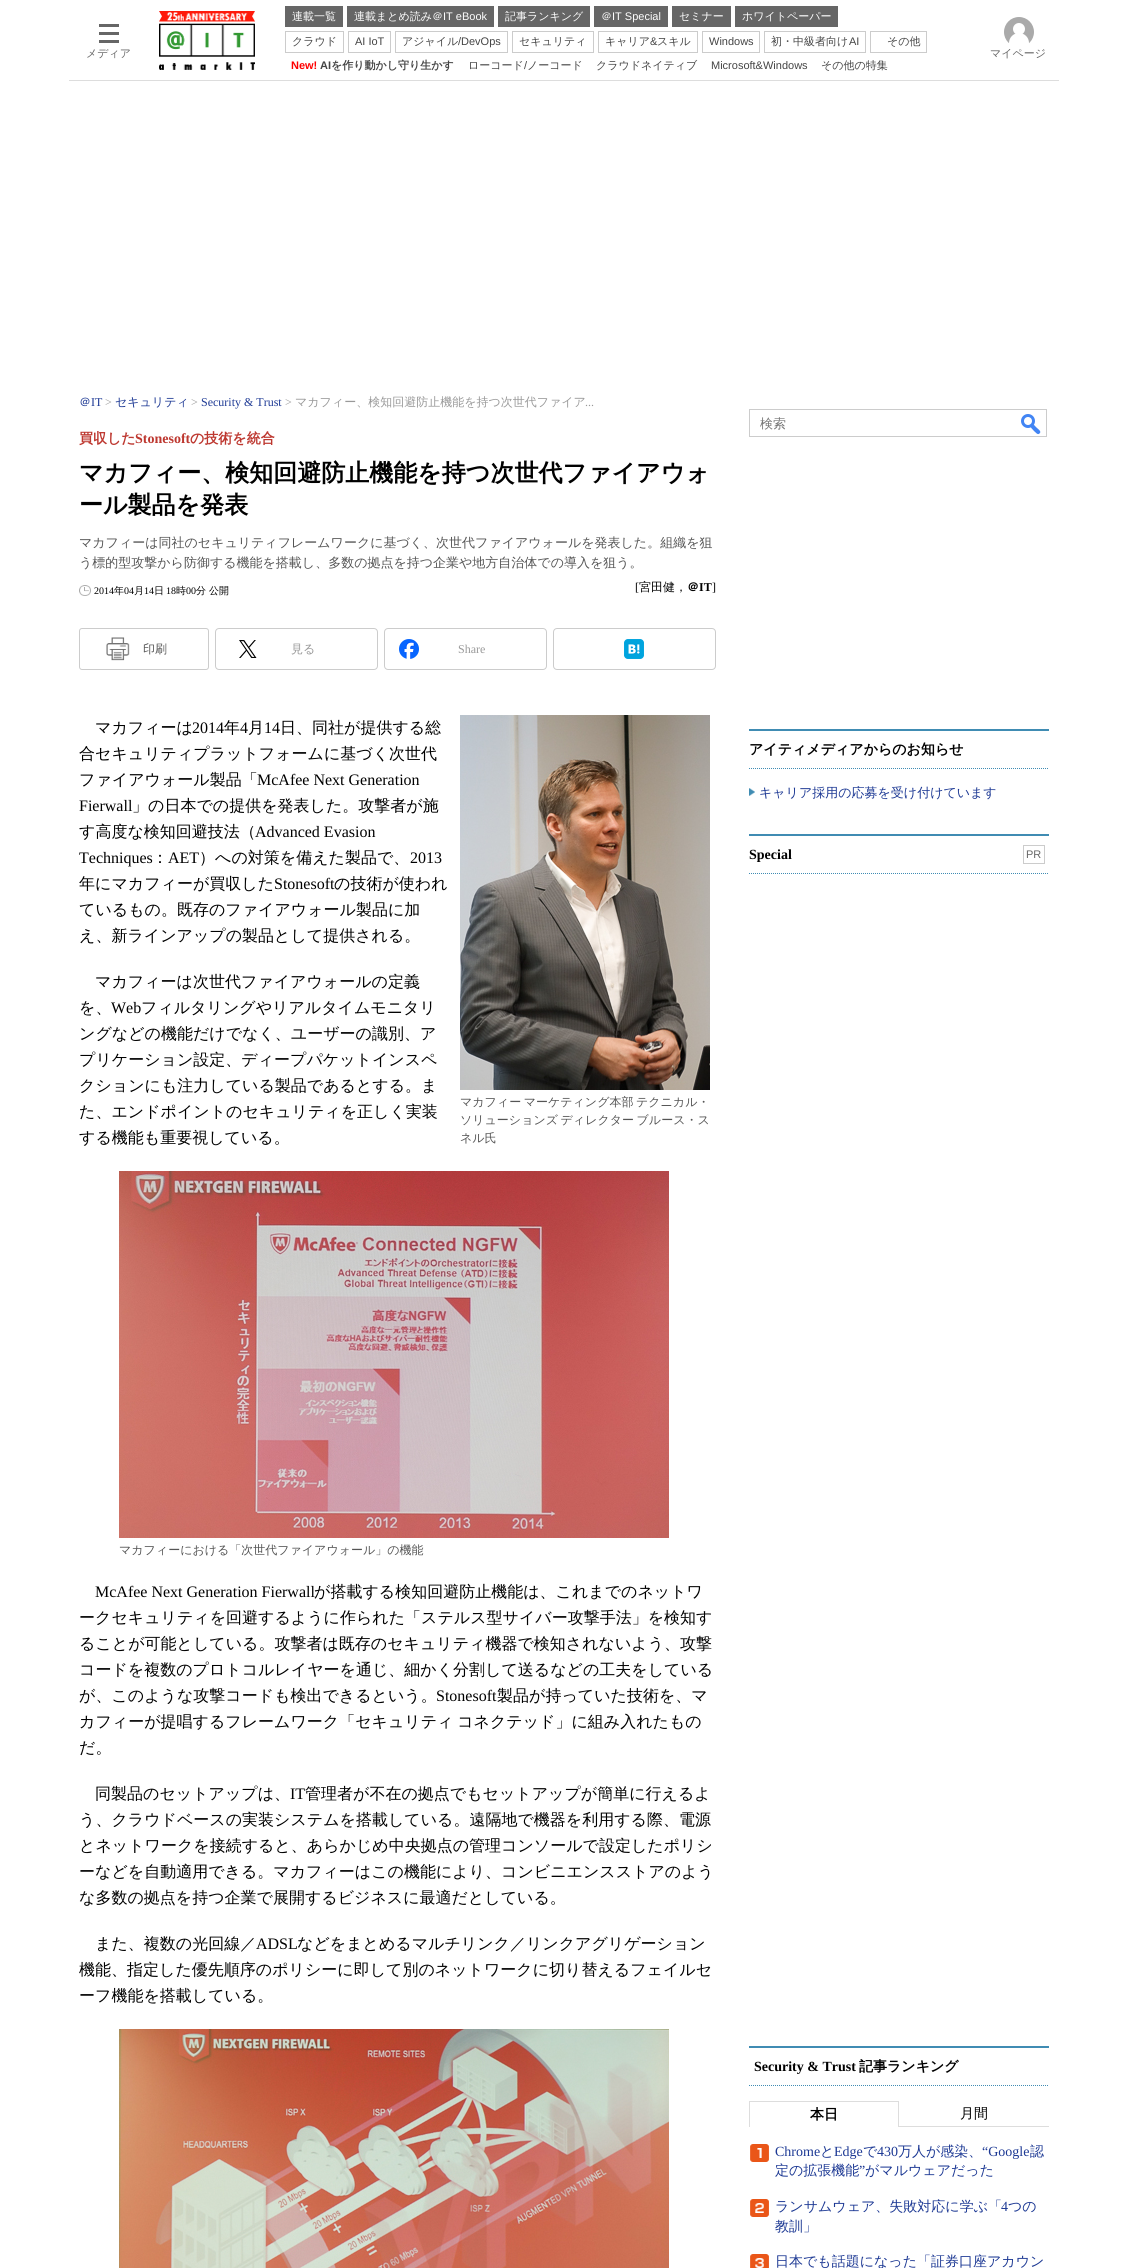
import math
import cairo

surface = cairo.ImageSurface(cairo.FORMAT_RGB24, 1127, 2268)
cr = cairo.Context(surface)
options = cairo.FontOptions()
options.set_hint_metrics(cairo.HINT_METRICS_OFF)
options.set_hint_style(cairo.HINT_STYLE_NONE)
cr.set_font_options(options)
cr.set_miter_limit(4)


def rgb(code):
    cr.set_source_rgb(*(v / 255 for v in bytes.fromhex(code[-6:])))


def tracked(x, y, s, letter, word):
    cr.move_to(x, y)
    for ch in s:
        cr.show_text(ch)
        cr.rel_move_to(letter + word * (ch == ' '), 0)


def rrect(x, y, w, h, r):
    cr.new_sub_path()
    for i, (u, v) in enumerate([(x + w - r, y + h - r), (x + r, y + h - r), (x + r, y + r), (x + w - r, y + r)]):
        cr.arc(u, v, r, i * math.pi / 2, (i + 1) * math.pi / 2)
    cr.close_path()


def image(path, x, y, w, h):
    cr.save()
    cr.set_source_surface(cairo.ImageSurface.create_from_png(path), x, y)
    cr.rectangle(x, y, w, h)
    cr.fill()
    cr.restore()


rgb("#ffffff")
cr.paint()
for x, y, w, h, color in [
    (69, 80, 990, 1, "#dddddd"),
    (99, 24, 20, 3, "#666666"),
    (99, 32, 20, 3, "#666666"),
    (99, 40, 20, 3, "#666666"),
]:
    rgb(color)
    cr.rectangle(x, y, w, h)
    cr.fill()
image("img/1.png", 159, 11, 96, 59)
for x, y, w, h, color in [
    (285, 6, 58, 21, "#666666"),
    (347, 6, 147, 21, "#666666"),
    (498, 6, 92, 21, "#666666"),
    (594, 6, 74, 21, "#666666"),
    (672, 6, 59, 21, "#666666"),
    (735, 6, 103, 21, "#666666"),
]:
    rgb(color)
    cr.rectangle(x, y, w, h)
    cr.fill()
cr.rectangle(285.5, 31.5, 58, 21)
rgb("#cccccc")
cr.set_line_width(1)
cr.stroke()
cr.rectangle(348.5, 31.5, 42, 21)
cr.stroke()
cr.rectangle(395.5, 31.5, 112, 21)
cr.stroke()
cr.rectangle(512.5, 31.5, 81, 21)
cr.stroke()
cr.rectangle(598.5, 31.5, 99, 21)
cr.stroke()
cr.rectangle(702.5, 31.5, 57, 21)
cr.stroke()
cr.rectangle(764.5, 31.5, 101, 21)
cr.stroke()
cr.rectangle(870.5, 31.5, 56, 21)
cr.stroke()
rgb("#aaaaaa")
cr.arc(1019, 32, 15, 0, 2 * math.pi)
cr.fill()
rgb("#ffffff")
cr.new_path()
cr.move_to(1019, 33)
cr.curve_to(1024.5, 33, 1029, 37.5, 1029, 43)
cr.line_to(1029, 47)
cr.line_to(1009, 47)
cr.line_to(1009, 43)
cr.curve_to(1009, 37.5, 1013.5, 33, 1019, 33)
cr.close_path()
cr.fill()
cr.arc(1019, 29, 6, 0, 2 * math.pi)
cr.fill()
image("img/2.png", 79, 585, 12, 11)
image("img/3.png", 106, 637, 24, 24)
rrect(79.5, 628.5, 129, 41, 2.5)
rgb("#cccccc")
cr.stroke()
image("img/4.png", 239, 640, 18, 18)
rrect(215.5, 628.5, 162, 41, 3.5)
cr.stroke()
image("img/5.png", 399, 639, 20, 20)
rrect(384.5, 628.5, 162, 41, 3.5)
cr.stroke()
image("img/6.png", 624, 639, 20, 20)
rrect(553.5, 628.5, 162, 41, 3.5)
cr.stroke()
image("img/7.png", 460, 715, 250, 375)
image("img/8.png", 119, 1171, 550, 367)
image("img/9.png", 119, 2029, 550, 239)
cr.rectangle(749.5, 409.5, 297, 27)
cr.stroke()
cr.arc(1028, 421, 5.5, 0, 2 * math.pi)
rgb("#4285f4")
cr.set_line_width(3)
cr.stroke()
cr.new_path()
cr.move_to(1031.5, 425)
cr.curve_to(1033.5, 423, 1035.5, 427, 1037, 428)
cr.curve_to(1038, 429, 1042, 431.5, 1039.5, 433.5)
cr.curve_to(1037.5, 435.5, 1035.5, 432, 1034, 431)
cr.curve_to(1033, 429.5, 1029, 427, 1031.5, 425)
cr.close_path()
cr.fill()
rgb("#408cb3")
cr.rectangle(749, 729, 300, 2)
cr.fill()
cr.new_path()
cr.move_to(749, 768.5)
cr.line_to(1049, 768.5)
cr.set_line_width(1)
cr.set_dash([1, 1])
cr.stroke()
image("img/10.png", 749, 788, 6, 8)
cr.rectangle(749, 834, 300, 2)
cr.fill()
cr.new_path()
cr.move_to(749, 873.5)
cr.line_to(1049, 873.5)
cr.stroke()
cr.rectangle(1023.5, 845.5, 21, 18)
rgb("#cccccc")
cr.set_dash([])
cr.stroke()
rgb("#408cb3")
cr.rectangle(749, 2046, 300, 2)
cr.fill()
cr.new_path()
cr.move_to(749, 2085.5)
cr.line_to(1049, 2085.5)
cr.set_dash([1, 1])
cr.stroke()
for x, y, w, h, color in [
    (749, 2101, 150, 1, "#dddddd"),
    (898, 2101, 1, 26, "#dddddd"),
    (749, 2101, 1, 26, "#dddddd"),
    (899, 2126, 150, 1, "#dddddd"),
]:
    rgb(color)
    cr.rectangle(x, y, w, h)
    cr.fill()
image("img/11.png", 750, 2144, 19, 18)
image("img/12.png", 750, 2199, 19, 18)
image("img/13.png", 750, 2254, 19, 14)
cr.select_font_face("WenQuanYi Zen Hei Medium")
cr.set_font_size(11)
rgb("#666666")
cr.move_to(86, 57)
cr.show_text("メディア")
rgb("#ffffff")
cr.move_to(292, 20)
cr.show_text("連載一覧")
cr.move_to(354, 20)
cr.show_text("連載まとめ読み＠")
cr.select_font_face("Liberation Sans")
cr.move_to(443, 20)
cr.show_text("IT eBook")
cr.select_font_face("WenQuanYi Zen Hei Medium")
cr.move_to(505, 20)
cr.show_text("記事ランキング")
cr.move_to(601, 20)
cr.show_text("＠")
cr.select_font_face("Liberation Sans")
cr.move_to(612, 20)
cr.show_text("IT Special")
cr.select_font_face("WenQuanYi Zen Hei Medium")
cr.move_to(679, 20)
cr.show_text("セミナー")
cr.move_to(742, 20)
cr.show_text("ホワイトペーパー")
rgb("#444444")
cr.move_to(292, 45)
cr.show_text("クラウド")
cr.select_font_face("Liberation Sans")
cr.move_to(355, 45)
cr.show_text("AI IoT")
cr.select_font_face("WenQuanYi Zen Hei Medium")
cr.move_to(402, 45)
cr.show_text("アジャイル")
cr.select_font_face("Liberation Sans")
cr.move_to(458, 45)
cr.show_text("/DevOps")
cr.select_font_face("WenQuanYi Zen Hei Medium")
cr.move_to(519, 45)
cr.show_text("セキュリティ")
cr.move_to(605, 45)
cr.show_text("キャリア")
cr.select_font_face("Liberation Sans")
cr.move_to(650, 45)
cr.show_text("&")
cr.select_font_face("WenQuanYi Zen Hei Medium")
cr.move_to(657, 45)
cr.show_text("スキル")
cr.select_font_face("Liberation Sans")
cr.move_to(709, 45)
cr.show_text("Windows")
cr.select_font_face("WenQuanYi Zen Hei Medium")
cr.move_to(771, 45)
cr.show_text("初・中級者向け")
cr.select_font_face("Liberation Sans")
cr.move_to(849, 45)
cr.show_text("AI")
cr.select_font_face("WenQuanYi Zen Hei Medium")
cr.move_to(887, 45)
cr.show_text("その他")
cr.select_font_face("Liberation Sans", cairo.FONT_SLANT_NORMAL, cairo.FONT_WEIGHT_BOLD)
rgb("#ff0000")
cr.move_to(291, 69)
cr.show_text("New!")
rgb("#444444")
cr.move_to(320, 69)
cr.show_text("AI")
cr.select_font_face("WenQuanYi Zen Hei", cairo.FONT_SLANT_NORMAL, cairo.FONT_WEIGHT_BOLD)
cr.move_to(331, 69)
cr.show_text("を作り動かし守り生かす")
cr.select_font_face("WenQuanYi Zen Hei Medium")
cr.move_to(468, 69)
cr.show_text("ローコード ノーコード")
cr.select_font_face("Liberation Sans")
cr.move_to(524, 69)
cr.show_text("/")
cr.select_font_face("WenQuanYi Zen Hei Medium")
cr.move_to(596, 69)
cr.show_text("クラウドネイティブ")
cr.select_font_face("Liberation Sans")
cr.move_to(711, 69)
cr.show_text("Microsoft&Windows")
cr.select_font_face("WenQuanYi Zen Hei Medium")
cr.move_to(821, 69)
cr.show_text("その他の特集")
rgb("#666666")
cr.move_to(990, 57)
cr.show_text("マイページ")
cr.set_font_size(12)
rgb("#1d3994")
cr.move_to(79, 406)
cr.show_text("＠")
cr.select_font_face("Liberation Serif")
cr.move_to(91, 406)
cr.show_text("IT")
rgb("#999999")
cr.move_to(105, 406)
cr.show_text(">")
cr.select_font_face("WenQuanYi Zen Hei Medium")
rgb("#1d3994")
cr.move_to(115, 406)
cr.show_text("セキュリティ")
cr.select_font_face("Liberation Serif")
rgb("#999999")
cr.move_to(191, 406)
cr.show_text(">")
rgb("#1d3994")
cr.move_to(201, 406)
cr.show_text("Security & Trust")
rgb("#999999")
cr.move_to(285, 406)
cr.show_text(">")
cr.select_font_face("WenQuanYi Zen Hei Medium")
cr.move_to(295, 406)
cr.show_text("マカフィー、検知回避防止機能を持つ次世代ファイア")
cr.select_font_face("Liberation Serif")
cr.move_to(585, 406)
cr.show_text("...")
cr.select_font_face("WenQuanYi Zen Hei", cairo.FONT_SLANT_NORMAL, cairo.FONT_WEIGHT_BOLD)
cr.set_font_size(14)
rgb("#bd372f")
cr.move_to(79, 443)
cr.show_text("買収した")
cr.select_font_face("Liberation Serif", cairo.FONT_SLANT_NORMAL, cairo.FONT_WEIGHT_BOLD)
cr.move_to(135, 443)
cr.show_text("Stonesoft")
cr.select_font_face("WenQuanYi Zen Hei", cairo.FONT_SLANT_NORMAL, cairo.FONT_WEIGHT_BOLD)
cr.move_to(190, 443)
cr.show_text("の技術を統合")
cr.set_font_size(24)
rgb("#000000")
cr.move_to(79, 481)
cr.show_text("マカフィー、検知回避防止機能を持つ次世代ファイアウォ")
cr.move_to(79, 513)
cr.show_text("ール製品を発表")
cr.select_font_face("WenQuanYi Zen Hei Medium")
cr.set_font_size(13)
rgb("#555555")
cr.move_to(79, 547)
cr.show_text("マカフィーは同社のセキュリティフレームワークに基づく、次世代ファイアウォールを発表した。組織を狙")
cr.move_to(79, 567)
cr.show_text("う標的型攻撃から防御する機能を搭載し、多数の拠点を持つ企業や地方自治体での導入を狙う。")
cr.select_font_face("Liberation Serif")
cr.set_font_size(10)
rgb("#000000")
cr.move_to(94, 594)
cr.show_text("2014")
cr.select_font_face("WenQuanYi Zen Hei Medium")
cr.move_to(114, 594)
cr.show_text("年")
cr.select_font_face("Liberation Serif")
cr.move_to(124, 594)
cr.show_text("04")
cr.select_font_face("WenQuanYi Zen Hei Medium")
cr.move_to(134, 594)
cr.show_text("月")
cr.select_font_face("Liberation Serif")
cr.move_to(144, 594)
cr.show_text("14")
cr.select_font_face("WenQuanYi Zen Hei Medium")
cr.move_to(154, 594)
cr.show_text("日")
cr.select_font_face("Liberation Serif")
cr.move_to(166, 594)
cr.show_text("18")
cr.select_font_face("WenQuanYi Zen Hei Medium")
cr.move_to(176, 594)
cr.show_text("時")
cr.select_font_face("Liberation Serif")
cr.move_to(186, 594)
cr.show_text("00")
cr.select_font_face("WenQuanYi Zen Hei Medium")
cr.move_to(196, 594)
cr.show_text("分 公開")
cr.select_font_face("Liberation Serif")
cr.set_font_size(12)
cr.move_to(635, 591)
cr.show_text("[")
cr.select_font_face("WenQuanYi Zen Hei Medium")
cr.move_to(639, 591)
cr.show_text("宮田健，")
cr.select_font_face("WenQuanYi Zen Hei", cairo.FONT_SLANT_NORMAL, cairo.FONT_WEIGHT_BOLD)
cr.move_to(687, 591)
cr.show_text("＠")
cr.select_font_face("Liberation Serif", cairo.FONT_SLANT_NORMAL, cairo.FONT_WEIGHT_BOLD)
cr.move_to(699, 591)
cr.show_text("IT")
cr.select_font_face("Liberation Serif")
cr.move_to(712, 591)
cr.show_text("]")
cr.select_font_face("WenQuanYi Zen Hei Medium")
rgb("#555555")
cr.move_to(143, 653)
cr.show_text("印刷")
rgb("#999999")
cr.move_to(291, 653)
cr.show_text("見る")
cr.select_font_face("Liberation Serif")
cr.move_to(458, 653)
cr.show_text("Share")
cr.select_font_face("WenQuanYi Zen Hei Medium")
cr.set_font_size(16)
rgb("#000000")
cr.move_to(95, 733)
cr.show_text("マカフィーは")
cr.select_font_face("Liberation Serif")
cr.move_to(192, 733)
cr.show_text("2014")
cr.select_font_face("WenQuanYi Zen Hei Medium")
cr.move_to(224, 733)
cr.show_text("年")
cr.select_font_face("Liberation Serif")
cr.move_to(240, 733)
cr.show_text("4")
cr.select_font_face("WenQuanYi Zen Hei Medium")
cr.move_to(248, 733)
cr.show_text("月")
cr.select_font_face("Liberation Serif")
cr.move_to(264, 733)
cr.show_text("14")
cr.select_font_face("WenQuanYi Zen Hei Medium")
for x, y, s in [
    (280, 733, "日、同社が提供する総"),
    (79, 759, "合セキュリティプラットフォームに基づく次世代"),
    (79, 785, "ファイアウォール製品「"),
]:
    cr.move_to(x, y)
    cr.show_text(s)
cr.select_font_face("Liberation Serif")
cr.move_to(257, 785)
cr.show_text("McAfee Next Generation")
cr.move_to(79, 811)
cr.show_text("Fierwall")
cr.select_font_face("WenQuanYi Zen Hei Medium")
cr.move_to(132, 811)
cr.show_text("」の日本での提供を発表した。攻撃者が施")
cr.move_to(79, 837)
cr.show_text("す高度な検知回避技法（")
cr.select_font_face("Liberation Serif")
cr.move_to(255, 837)
cr.show_text("Advanced Evasion")
cr.move_to(79, 863)
cr.show_text("Techniques")
cr.select_font_face("WenQuanYi Zen Hei Medium")
cr.move_to(152, 863)
cr.show_text("：")
cr.select_font_face("Liberation Serif")
cr.move_to(168, 863)
cr.show_text("AET")
cr.select_font_face("WenQuanYi Zen Hei Medium")
cr.move_to(199, 863)
cr.show_text("）への対策を備えた製品で、")
cr.select_font_face("Liberation Serif")
cr.move_to(410, 863)
cr.show_text("2013")
cr.select_font_face("WenQuanYi Zen Hei Medium")
cr.move_to(79, 889)
cr.show_text("年にマカフィーが買収した")
cr.select_font_face("Liberation Serif")
cr.move_to(274, 889)
cr.show_text("Stonesoft")
cr.select_font_face("WenQuanYi Zen Hei Medium")
for x, y, s in [
    (334, 889, "の技術が使われ"),
    (79, 915, "ているもの。既存のファイアウォール製品に加"),
    (79, 941, "え、新ラインアップの製品として提供される。"),
    (95, 987, "マカフィーは次世代ファイアウォールの定義"),
    (79, 1013, "を、"),
]:
    cr.move_to(x, y)
    cr.show_text(s)
cr.select_font_face("Liberation Serif")
cr.move_to(111, 1013)
cr.show_text("Web")
cr.select_font_face("WenQuanYi Zen Hei Medium")
for x, y, s in [
    (141, 1013, "フィルタリングやリアルタイムモニタリ"),
    (79, 1039, "ングなどの機能だけでなく、ユーザーの識別、ア"),
    (79, 1065, "プリケーション設定、ディープパケットインスペ"),
    (79, 1091, "クションにも注力している製品であるとする。ま"),
    (79, 1117, "た、エンドポイントのセキュリティを正しく実装"),
    (79, 1143, "する機能も重要視している。"),
]:
    cr.move_to(x, y)
    cr.show_text(s)
cr.set_font_size(12)
rgb("#555555")
tracked(460, 1106, "マカフィー マーケティング本部 テクニカル・", 0, -1)
tracked(460, 1124, "ソリューションズ ディレクター ブルース・ス", 0, -1)
cr.move_to(460, 1142)
cr.show_text("ネル氏")
cr.move_to(119, 1554)
cr.show_text("マカフィーにおける「次世代ファイアウォール」の機能")
cr.select_font_face("Liberation Serif")
cr.set_font_size(16)
rgb("#000000")
cr.move_to(95, 1597)
cr.show_text("McAfee Next Generation Fierwall")
cr.select_font_face("WenQuanYi Zen Hei Medium")
for x, y, s in [
    (314, 1597, "が搭載する検知回避防止機能は、これまでのネットワ"),
    (79, 1623, "ークセキュリティを回避するように作られた「ステルス型サイバー攻撃手法」を検知す"),
    (79, 1649, "ることが可能としている。攻撃者は既存のセキュリティ機器で検知されないよう、攻撃"),
    (79, 1675, "コードを複数のプロトコルレイヤーを通じ、細かく分割して送るなどの工夫をしている"),
    (79, 1701, "が、このような攻撃コードも検出できるという。"),
]:
    cr.move_to(x, y)
    cr.show_text(s)
cr.select_font_face("Liberation Serif")
cr.move_to(436, 1701)
cr.show_text("Stonesoft")
cr.select_font_face("WenQuanYi Zen Hei Medium")
cr.move_to(497, 1701)
cr.show_text("製品が持っていた技術を、マ")
tracked(79, 1727, "カフィーが提唱するフレームワーク「セキュリティ コネクテッド」に組み入れたもの", 0, -1)
cr.move_to(79, 1753)
cr.show_text("だ。")
cr.move_to(95, 1799)
cr.show_text("同製品のセットアップは、")
cr.select_font_face("Liberation Serif")
cr.move_to(290, 1799)
cr.show_text("IT")
cr.select_font_face("WenQuanYi Zen Hei Medium")
for x, y, s in [
    (305, 1799, "管理者が不在の拠点でもセットアップが簡単に行えるよ"),
    (79, 1825, "う、クラウドベースの実装システムを搭載している。遠隔地で機器を利用する際、電源"),
    (79, 1851, "とネットワークを接続すると、あらかじめ中央拠点の管理コンソールで設定したポリシ"),
    (79, 1877, "ーなどを自動適用できる。マカフィーはこの機能により、コンビニエンスストアのよう"),
    (79, 1903, "な多数の拠点を持つ企業で展開するビジネスに最適だとしている。"),
    (95, 1949, "また、複数の光回線／"),
]:
    cr.move_to(x, y)
    cr.show_text(s)
cr.select_font_face("Liberation Serif")
cr.move_to(256, 1949)
cr.show_text("ADSL")
cr.select_font_face("WenQuanYi Zen Hei Medium")
for x, y, s in [
    (297, 1949, "などをまとめるマルチリンク／リンクアグリゲーション"),
    (79, 1975, "機能、指定した優先順序のポリシーに即して別のネットワークに切り替えるフェイルセ"),
    (79, 2001, "ーフ機能を搭載している。"),
]:
    cr.move_to(x, y)
    cr.show_text(s)
cr.set_font_size(13)
rgb("#757575")
cr.move_to(760, 428)
cr.show_text("検索")
cr.select_font_face("WenQuanYi Zen Hei", cairo.FONT_SLANT_NORMAL, cairo.FONT_WEIGHT_BOLD)
cr.set_font_size(14)
rgb("#000000")
cr.move_to(749, 754)
cr.show_text("アイティメディアからのお知らせ")
cr.select_font_face("WenQuanYi Zen Hei Medium")
cr.set_font_size(13)
rgb("#1d3994")
cr.move_to(759, 797)
cr.show_text("キャリア採用の応募を受け付けています")
cr.select_font_face("Liberation Serif", cairo.FONT_SLANT_NORMAL, cairo.FONT_WEIGHT_BOLD)
cr.set_font_size(14)
rgb("#000000")
cr.move_to(749, 859)
cr.show_text("Special")
cr.select_font_face("Liberation Sans")
cr.set_font_size(11)
rgb("#666666")
cr.move_to(1026, 858)
cr.show_text("PR")
cr.select_font_face("Liberation Serif", cairo.FONT_SLANT_NORMAL, cairo.FONT_WEIGHT_BOLD)
cr.set_font_size(14)
rgb("#000000")
cr.move_to(754, 2071)
cr.show_text("Security & Trust")
cr.select_font_face("WenQuanYi Zen Hei", cairo.FONT_SLANT_NORMAL, cairo.FONT_WEIGHT_BOLD)
cr.move_to(859, 2071)
cr.show_text("記事ランキング")
cr.move_to(810, 2119)
cr.show_text("本日")
cr.select_font_face("WenQuanYi Zen Hei Medium")
cr.move_to(960, 2118)
cr.show_text("月間")
cr.select_font_face("Liberation Serif")
rgb("#1d3994")
cr.move_to(775, 2156)
cr.show_text("Chrome")
cr.select_font_face("WenQuanYi Zen Hei Medium")
cr.move_to(820, 2156)
cr.show_text("と")
cr.select_font_face("Liberation Serif")
cr.move_to(834, 2156)
cr.show_text("Edge")
cr.select_font_face("WenQuanYi Zen Hei Medium")
cr.move_to(863, 2156)
cr.show_text("で")
cr.select_font_face("Liberation Serif")
cr.move_to(877, 2156)
cr.show_text("430")
cr.select_font_face("WenQuanYi Zen Hei Medium")
cr.move_to(898, 2156)
cr.show_text("万人が感染、")
cr.select_font_face("Liberation Serif")
cr.move_to(982, 2156)
cr.show_text("“Google")
cr.select_font_face("WenQuanYi Zen Hei Medium")
cr.move_to(1030, 2156)
cr.show_text("認")
cr.move_to(775, 2175)
cr.show_text("定の拡張機能")
cr.select_font_face("Liberation Serif")
cr.move_to(859, 2175)
cr.show_text("”")
cr.select_font_face("WenQuanYi Zen Hei Medium")
cr.move_to(865, 2175)
cr.show_text("がマルウェアだった")
cr.move_to(775, 2211)
cr.show_text("ランサムウェア、失敗対応に学ぶ「")
cr.select_font_face("Liberation Serif")
cr.move_to(1001, 2211)
cr.show_text("4")
cr.select_font_face("WenQuanYi Zen Hei Medium")
for x, y, s in [
    (1008, 2211, "つの"),
    (775, 2231, "教訓」"),
    (775, 2266, "日本でも話題になった「証券口座アカウン"),
]:
    cr.move_to(x, y)
    cr.show_text(s)
surface.write_to_png("page.png")
